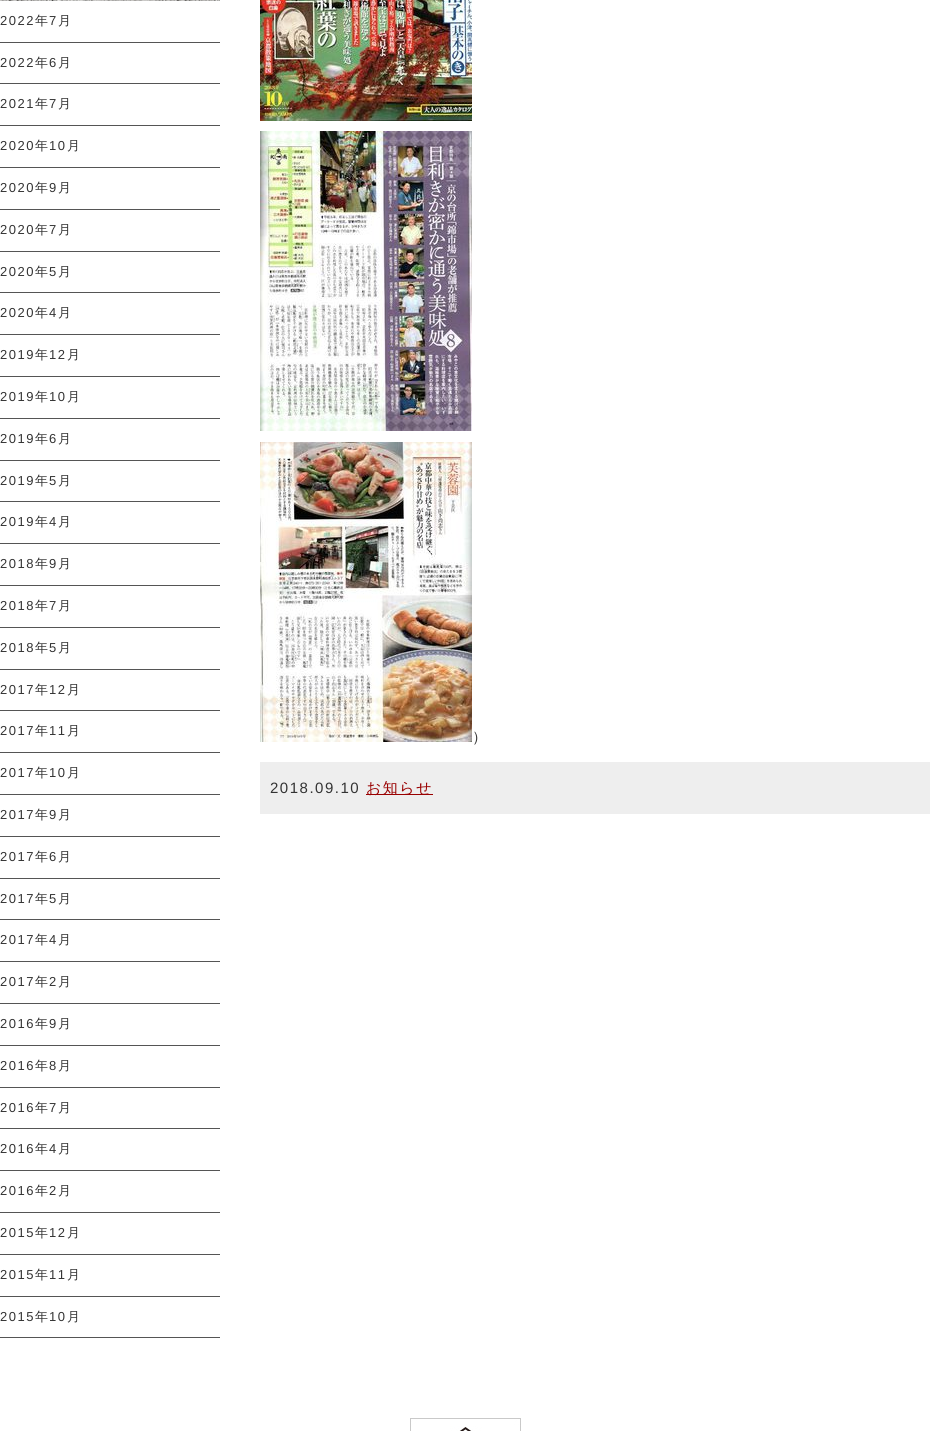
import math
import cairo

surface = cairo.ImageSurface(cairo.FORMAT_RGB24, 930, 1431)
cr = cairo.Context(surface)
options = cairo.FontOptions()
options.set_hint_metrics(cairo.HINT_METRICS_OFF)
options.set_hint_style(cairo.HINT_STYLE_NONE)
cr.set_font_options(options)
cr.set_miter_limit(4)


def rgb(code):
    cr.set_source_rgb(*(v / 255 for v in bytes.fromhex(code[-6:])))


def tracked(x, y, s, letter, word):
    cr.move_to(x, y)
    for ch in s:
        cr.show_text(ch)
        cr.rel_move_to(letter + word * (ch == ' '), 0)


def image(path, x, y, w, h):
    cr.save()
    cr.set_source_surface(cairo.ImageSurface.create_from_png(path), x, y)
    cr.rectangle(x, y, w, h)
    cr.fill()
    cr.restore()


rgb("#ffffff")
cr.paint()
image("img/1.png", 0, 0, 220, 1)
for x, y, w, h, color in [
    (0, 42, 220, 1, "#555555"),
    (0, 83, 220, 1, "#555555"),
    (0, 125, 220, 1, "#555555"),
    (0, 167, 220, 1, "#555555"),
    (0, 209, 220, 1, "#555555"),
    (0, 251, 220, 1, "#555555"),
    (0, 292, 220, 1, "#555555"),
    (0, 334, 220, 1, "#555555"),
    (0, 376, 220, 1, "#555555"),
    (0, 418, 220, 1, "#555555"),
    (0, 460, 220, 1, "#555555"),
    (0, 501, 220, 1, "#555555"),
    (0, 543, 220, 1, "#555555"),
    (0, 585, 220, 1, "#555555"),
    (0, 627, 220, 1, "#555555"),
    (0, 669, 220, 1, "#555555"),
    (0, 710, 220, 1, "#555555"),
    (0, 752, 220, 1, "#555555"),
    (0, 794, 220, 1, "#555555"),
    (0, 836, 220, 1, "#555555"),
    (0, 878, 220, 1, "#555555"),
    (0, 919, 220, 1, "#555555"),
    (0, 961, 220, 1, "#555555"),
    (0, 1003, 220, 1, "#555555"),
    (0, 1045, 220, 1, "#555555"),
    (0, 1087, 220, 1, "#555555"),
    (0, 1128, 220, 1, "#555555"),
    (0, 1170, 220, 1, "#555555"),
    (0, 1212, 220, 1, "#555555"),
    (0, 1254, 220, 1, "#555555"),
    (0, 1296, 220, 1, "#555555"),
    (0, 1337, 220, 1, "#555555"),
]:
    rgb(color)
    cr.rectangle(x, y, w, h)
    cr.fill()
image("img/2.png", 260, 0, 212, 121)
image("img/3.png", 260, 131, 212, 300)
image("img/4.png", 260, 442, 212, 300)
rgb("#eeeeee")
cr.rectangle(260, 762, 670, 52)
cr.fill()
rgb("#990000")
cr.rectangle(366, 794, 67, 1)
cr.fill()
image("img/5.png", 410, 1418, 111, 13)
cr.select_font_face("Liberation Sans")
cr.set_font_size(13)
rgb("#333333")
tracked(0, 25, "2022", 1.5, 0)
cr.select_font_face("WenQuanYi Zen Hei Medium")
tracked(35, 25, "年", 1.5, 0)
cr.select_font_face("Liberation Sans")
tracked(49, 25, "7", 1.5, 0)
cr.select_font_face("WenQuanYi Zen Hei Medium")
tracked(58, 25, "月", 1.5, 0)
cr.select_font_face("Liberation Sans")
tracked(0, 67, "2022", 1.5, 0)
cr.select_font_face("WenQuanYi Zen Hei Medium")
tracked(35, 67, "年", 1.5, 0)
cr.select_font_face("Liberation Sans")
tracked(49, 67, "6", 1.5, 0)
cr.select_font_face("WenQuanYi Zen Hei Medium")
tracked(58, 67, "月", 1.5, 0)
cr.select_font_face("Liberation Sans")
tracked(0, 108, "2021", 1.5, 0)
cr.select_font_face("WenQuanYi Zen Hei Medium")
tracked(35, 108, "年", 1.5, 0)
cr.select_font_face("Liberation Sans")
tracked(49, 108, "7", 1.5, 0)
cr.select_font_face("WenQuanYi Zen Hei Medium")
tracked(58, 108, "月", 1.5, 0)
cr.select_font_face("Liberation Sans")
tracked(0, 150, "2020", 1.5, 0)
cr.select_font_face("WenQuanYi Zen Hei Medium")
tracked(35, 150, "年", 1.5, 0)
cr.select_font_face("Liberation Sans")
tracked(49, 150, "10", 1.5, 0)
cr.select_font_face("WenQuanYi Zen Hei Medium")
tracked(67, 150, "月", 1.5, 0)
cr.select_font_face("Liberation Sans")
tracked(0, 192, "2020", 1.5, 0)
cr.select_font_face("WenQuanYi Zen Hei Medium")
tracked(35, 192, "年", 1.5, 0)
cr.select_font_face("Liberation Sans")
tracked(49, 192, "9", 1.5, 0)
cr.select_font_face("WenQuanYi Zen Hei Medium")
tracked(58, 192, "月", 1.5, 0)
cr.select_font_face("Liberation Sans")
tracked(0, 234, "2020", 1.5, 0)
cr.select_font_face("WenQuanYi Zen Hei Medium")
tracked(35, 234, "年", 1.5, 0)
cr.select_font_face("Liberation Sans")
tracked(49, 234, "7", 1.5, 0)
cr.select_font_face("WenQuanYi Zen Hei Medium")
tracked(58, 234, "月", 1.5, 0)
cr.select_font_face("Liberation Sans")
tracked(0, 276, "2020", 1.5, 0)
cr.select_font_face("WenQuanYi Zen Hei Medium")
tracked(35, 276, "年", 1.5, 0)
cr.select_font_face("Liberation Sans")
tracked(49, 276, "5", 1.5, 0)
cr.select_font_face("WenQuanYi Zen Hei Medium")
tracked(58, 276, "月", 1.5, 0)
cr.select_font_face("Liberation Sans")
tracked(0, 317, "2020", 1.5, 0)
cr.select_font_face("WenQuanYi Zen Hei Medium")
tracked(35, 317, "年", 1.5, 0)
cr.select_font_face("Liberation Sans")
tracked(49, 317, "4", 1.5, 0)
cr.select_font_face("WenQuanYi Zen Hei Medium")
tracked(58, 317, "月", 1.5, 0)
cr.select_font_face("Liberation Sans")
tracked(0, 359, "2019", 1.5, 0)
cr.select_font_face("WenQuanYi Zen Hei Medium")
tracked(35, 359, "年", 1.5, 0)
cr.select_font_face("Liberation Sans")
tracked(49, 359, "12", 1.5, 0)
cr.select_font_face("WenQuanYi Zen Hei Medium")
tracked(67, 359, "月", 1.5, 0)
cr.select_font_face("Liberation Sans")
tracked(0, 401, "2019", 1.5, 0)
cr.select_font_face("WenQuanYi Zen Hei Medium")
tracked(35, 401, "年", 1.5, 0)
cr.select_font_face("Liberation Sans")
tracked(49, 401, "10", 1.5, 0)
cr.select_font_face("WenQuanYi Zen Hei Medium")
tracked(67, 401, "月", 1.5, 0)
cr.select_font_face("Liberation Sans")
tracked(0, 443, "2019", 1.5, 0)
cr.select_font_face("WenQuanYi Zen Hei Medium")
tracked(35, 443, "年", 1.5, 0)
cr.select_font_face("Liberation Sans")
tracked(49, 443, "6", 1.5, 0)
cr.select_font_face("WenQuanYi Zen Hei Medium")
tracked(58, 443, "月", 1.5, 0)
cr.select_font_face("Liberation Sans")
tracked(0, 485, "2019", 1.5, 0)
cr.select_font_face("WenQuanYi Zen Hei Medium")
tracked(35, 485, "年", 1.5, 0)
cr.select_font_face("Liberation Sans")
tracked(49, 485, "5", 1.5, 0)
cr.select_font_face("WenQuanYi Zen Hei Medium")
tracked(58, 485, "月", 1.5, 0)
cr.select_font_face("Liberation Sans")
tracked(0, 526, "2019", 1.5, 0)
cr.select_font_face("WenQuanYi Zen Hei Medium")
tracked(35, 526, "年", 1.5, 0)
cr.select_font_face("Liberation Sans")
tracked(49, 526, "4", 1.5, 0)
cr.select_font_face("WenQuanYi Zen Hei Medium")
tracked(58, 526, "月", 1.5, 0)
cr.select_font_face("Liberation Sans")
tracked(0, 568, "2018", 1.5, 0)
cr.select_font_face("WenQuanYi Zen Hei Medium")
tracked(35, 568, "年", 1.5, 0)
cr.select_font_face("Liberation Sans")
tracked(49, 568, "9", 1.5, 0)
cr.select_font_face("WenQuanYi Zen Hei Medium")
tracked(58, 568, "月", 1.5, 0)
cr.select_font_face("Liberation Sans")
tracked(0, 610, "2018", 1.5, 0)
cr.select_font_face("WenQuanYi Zen Hei Medium")
tracked(35, 610, "年", 1.5, 0)
cr.select_font_face("Liberation Sans")
tracked(49, 610, "7", 1.5, 0)
cr.select_font_face("WenQuanYi Zen Hei Medium")
tracked(58, 610, "月", 1.5, 0)
cr.select_font_face("Liberation Sans")
tracked(0, 652, "2018", 1.5, 0)
cr.select_font_face("WenQuanYi Zen Hei Medium")
tracked(35, 652, "年", 1.5, 0)
cr.select_font_face("Liberation Sans")
tracked(49, 652, "5", 1.5, 0)
cr.select_font_face("WenQuanYi Zen Hei Medium")
tracked(58, 652, "月", 1.5, 0)
cr.select_font_face("Liberation Sans")
tracked(0, 694, "2017", 1.5, 0)
cr.select_font_face("WenQuanYi Zen Hei Medium")
tracked(35, 694, "年", 1.5, 0)
cr.select_font_face("Liberation Sans")
tracked(49, 694, "12", 1.5, 0)
cr.select_font_face("WenQuanYi Zen Hei Medium")
tracked(67, 694, "月", 1.5, 0)
cr.select_font_face("Liberation Sans")
tracked(0, 735, "2017", 1.5, 0)
cr.select_font_face("WenQuanYi Zen Hei Medium")
tracked(35, 735, "年", 1.5, 0)
cr.select_font_face("Liberation Sans")
tracked(49, 735, "11", 1.5, 0)
cr.select_font_face("WenQuanYi Zen Hei Medium")
tracked(67, 735, "月", 1.5, 0)
cr.select_font_face("Liberation Sans")
tracked(0, 777, "2017", 1.5, 0)
cr.select_font_face("WenQuanYi Zen Hei Medium")
tracked(35, 777, "年", 1.5, 0)
cr.select_font_face("Liberation Sans")
tracked(49, 777, "10", 1.5, 0)
cr.select_font_face("WenQuanYi Zen Hei Medium")
tracked(67, 777, "月", 1.5, 0)
cr.select_font_face("Liberation Sans")
tracked(0, 819, "2017", 1.5, 0)
cr.select_font_face("WenQuanYi Zen Hei Medium")
tracked(35, 819, "年", 1.5, 0)
cr.select_font_face("Liberation Sans")
tracked(49, 819, "9", 1.5, 0)
cr.select_font_face("WenQuanYi Zen Hei Medium")
tracked(58, 819, "月", 1.5, 0)
cr.select_font_face("Liberation Sans")
tracked(0, 861, "2017", 1.5, 0)
cr.select_font_face("WenQuanYi Zen Hei Medium")
tracked(35, 861, "年", 1.5, 0)
cr.select_font_face("Liberation Sans")
tracked(49, 861, "6", 1.5, 0)
cr.select_font_face("WenQuanYi Zen Hei Medium")
tracked(58, 861, "月", 1.5, 0)
cr.select_font_face("Liberation Sans")
tracked(0, 903, "2017", 1.5, 0)
cr.select_font_face("WenQuanYi Zen Hei Medium")
tracked(35, 903, "年", 1.5, 0)
cr.select_font_face("Liberation Sans")
tracked(49, 903, "5", 1.5, 0)
cr.select_font_face("WenQuanYi Zen Hei Medium")
tracked(58, 903, "月", 1.5, 0)
cr.select_font_face("Liberation Sans")
tracked(0, 944, "2017", 1.5, 0)
cr.select_font_face("WenQuanYi Zen Hei Medium")
tracked(35, 944, "年", 1.5, 0)
cr.select_font_face("Liberation Sans")
tracked(49, 944, "4", 1.5, 0)
cr.select_font_face("WenQuanYi Zen Hei Medium")
tracked(58, 944, "月", 1.5, 0)
cr.select_font_face("Liberation Sans")
tracked(0, 986, "2017", 1.5, 0)
cr.select_font_face("WenQuanYi Zen Hei Medium")
tracked(35, 986, "年", 1.5, 0)
cr.select_font_face("Liberation Sans")
tracked(49, 986, "2", 1.5, 0)
cr.select_font_face("WenQuanYi Zen Hei Medium")
tracked(58, 986, "月", 1.5, 0)
cr.select_font_face("Liberation Sans")
tracked(0, 1028, "2016", 1.5, 0)
cr.select_font_face("WenQuanYi Zen Hei Medium")
tracked(35, 1028, "年", 1.5, 0)
cr.select_font_face("Liberation Sans")
tracked(49, 1028, "9", 1.5, 0)
cr.select_font_face("WenQuanYi Zen Hei Medium")
tracked(58, 1028, "月", 1.5, 0)
cr.select_font_face("Liberation Sans")
tracked(0, 1070, "2016", 1.5, 0)
cr.select_font_face("WenQuanYi Zen Hei Medium")
tracked(35, 1070, "年", 1.5, 0)
cr.select_font_face("Liberation Sans")
tracked(49, 1070, "8", 1.5, 0)
cr.select_font_face("WenQuanYi Zen Hei Medium")
tracked(58, 1070, "月", 1.5, 0)
cr.select_font_face("Liberation Sans")
tracked(0, 1112, "2016", 1.5, 0)
cr.select_font_face("WenQuanYi Zen Hei Medium")
tracked(35, 1112, "年", 1.5, 0)
cr.select_font_face("Liberation Sans")
tracked(49, 1112, "7", 1.5, 0)
cr.select_font_face("WenQuanYi Zen Hei Medium")
tracked(58, 1112, "月", 1.5, 0)
cr.select_font_face("Liberation Sans")
tracked(0, 1153, "2016", 1.5, 0)
cr.select_font_face("WenQuanYi Zen Hei Medium")
tracked(35, 1153, "年", 1.5, 0)
cr.select_font_face("Liberation Sans")
tracked(49, 1153, "4", 1.5, 0)
cr.select_font_face("WenQuanYi Zen Hei Medium")
tracked(58, 1153, "月", 1.5, 0)
cr.select_font_face("Liberation Sans")
tracked(0, 1195, "2016", 1.5, 0)
cr.select_font_face("WenQuanYi Zen Hei Medium")
tracked(35, 1195, "年", 1.5, 0)
cr.select_font_face("Liberation Sans")
tracked(49, 1195, "2", 1.5, 0)
cr.select_font_face("WenQuanYi Zen Hei Medium")
tracked(58, 1195, "月", 1.5, 0)
cr.select_font_face("Liberation Sans")
tracked(0, 1237, "2015", 1.5, 0)
cr.select_font_face("WenQuanYi Zen Hei Medium")
tracked(35, 1237, "年", 1.5, 0)
cr.select_font_face("Liberation Sans")
tracked(49, 1237, "12", 1.5, 0)
cr.select_font_face("WenQuanYi Zen Hei Medium")
tracked(67, 1237, "月", 1.5, 0)
cr.select_font_face("Liberation Sans")
tracked(0, 1279, "2015", 1.5, 0)
cr.select_font_face("WenQuanYi Zen Hei Medium")
tracked(35, 1279, "年", 1.5, 0)
cr.select_font_face("Liberation Sans")
tracked(49, 1279, "11", 1.5, 0)
cr.select_font_face("WenQuanYi Zen Hei Medium")
tracked(67, 1279, "月", 1.5, 0)
cr.select_font_face("Liberation Sans")
tracked(0, 1321, "2015", 1.5, 0)
cr.select_font_face("WenQuanYi Zen Hei Medium")
tracked(35, 1321, "年", 1.5, 0)
cr.select_font_face("Liberation Sans")
tracked(49, 1321, "10", 1.5, 0)
cr.select_font_face("WenQuanYi Zen Hei Medium")
tracked(67, 1321, "月", 1.5, 0)
cr.set_font_size(15)
tracked(472, 742, "）", 1.5, 0)
cr.select_font_face("Liberation Sans")
tracked(270, 793, "2018.09.10", 1.5, 0)
cr.select_font_face("WenQuanYi Zen Hei Medium")
rgb("#990000")
tracked(366, 793, "お知らせ", 1.5, 0)
surface.write_to_png("page.png")
